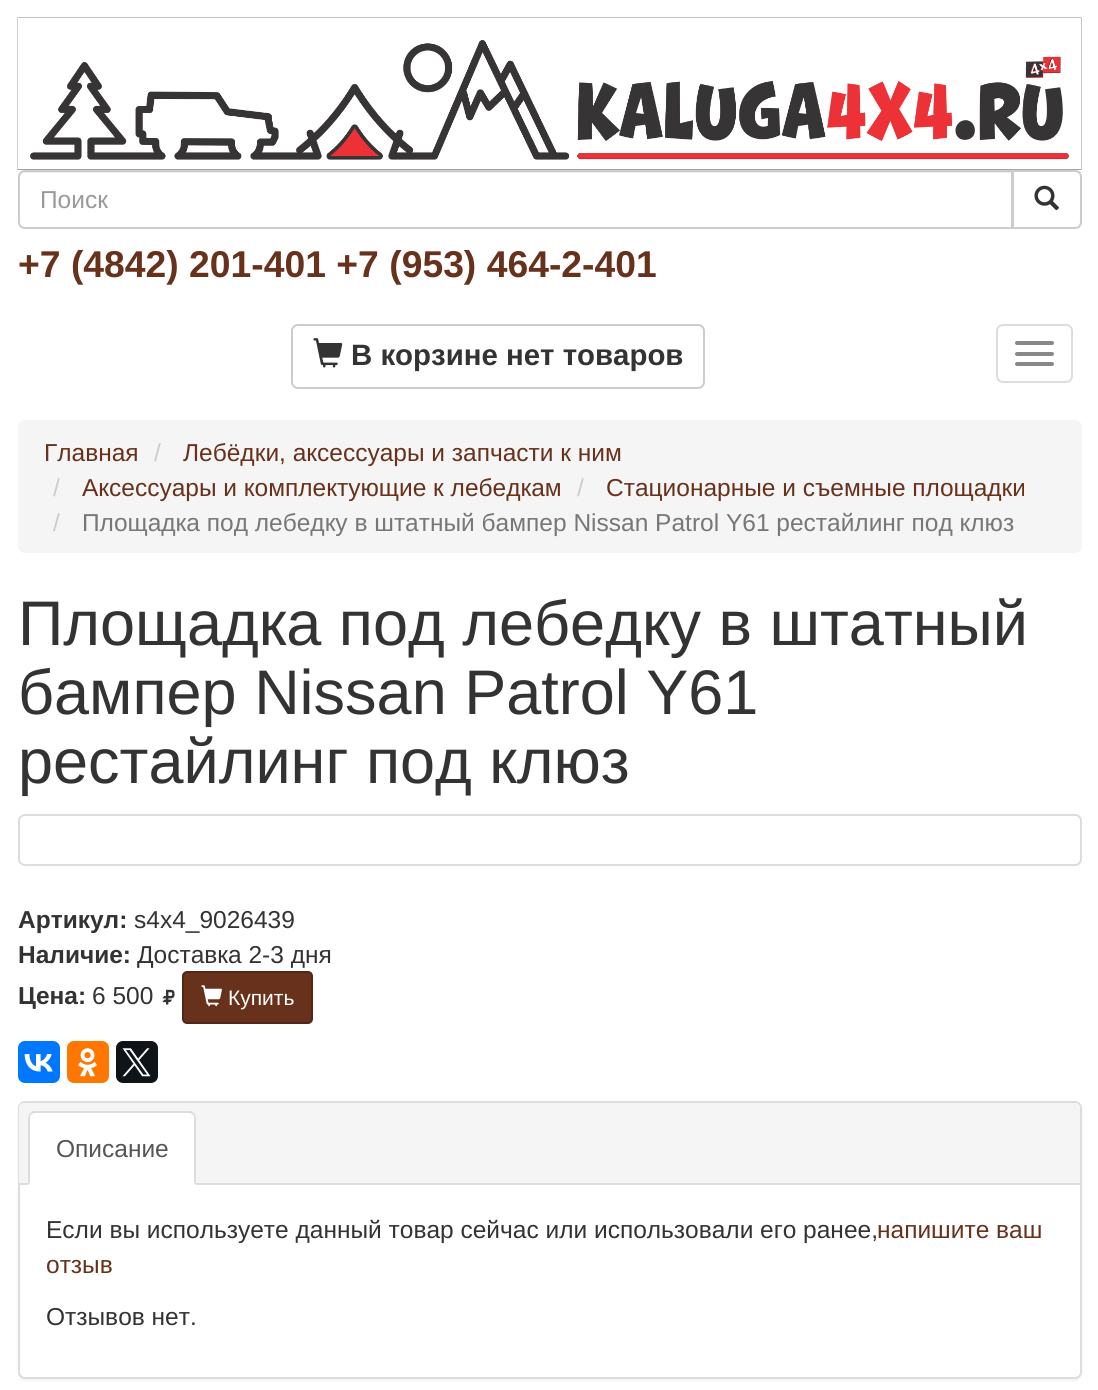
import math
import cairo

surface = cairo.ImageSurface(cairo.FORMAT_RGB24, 1098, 1390)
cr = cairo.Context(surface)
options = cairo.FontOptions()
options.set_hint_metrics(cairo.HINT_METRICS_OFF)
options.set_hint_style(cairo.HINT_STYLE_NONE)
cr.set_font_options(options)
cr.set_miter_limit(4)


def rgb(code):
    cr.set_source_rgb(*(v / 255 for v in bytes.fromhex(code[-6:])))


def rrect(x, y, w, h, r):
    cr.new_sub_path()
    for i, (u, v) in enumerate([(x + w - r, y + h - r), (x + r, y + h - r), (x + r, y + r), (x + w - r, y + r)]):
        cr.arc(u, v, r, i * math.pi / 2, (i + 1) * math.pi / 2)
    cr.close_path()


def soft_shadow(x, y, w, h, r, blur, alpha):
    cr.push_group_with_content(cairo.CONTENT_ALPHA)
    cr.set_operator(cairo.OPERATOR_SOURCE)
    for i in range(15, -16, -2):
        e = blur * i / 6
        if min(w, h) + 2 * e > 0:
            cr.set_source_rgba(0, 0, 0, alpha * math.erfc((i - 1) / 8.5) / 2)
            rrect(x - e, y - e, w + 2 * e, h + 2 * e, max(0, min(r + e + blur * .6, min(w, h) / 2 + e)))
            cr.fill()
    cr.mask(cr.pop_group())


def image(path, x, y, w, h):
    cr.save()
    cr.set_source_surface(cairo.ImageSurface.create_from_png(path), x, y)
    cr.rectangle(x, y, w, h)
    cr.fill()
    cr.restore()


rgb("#ffffff")
cr.paint()
image("img/1.png", 17, 17, 1065, 153)
rgb("#ececec")
cr.new_path()
cr.move_to(24, 173)
cr.line_to(1012, 173)
cr.line_to(1012, 172)
cr.line_to(24, 172)
cr.curve_to(21, 172, 19, 175, 19, 178)
cr.curve_to(19, 176, 22, 173, 24, 173)
cr.close_path()
cr.fill()
cr.new_path()
cr.move_to(25, 171)
cr.line_to(1012, 171)
cr.line_to(1012, 228)
cr.line_to(25, 228)
cr.curve_to(21.5, 228, 19, 225.5, 19, 222)
cr.line_to(19, 177)
cr.curve_to(19, 173.5, 21.5, 171, 25, 171)
cr.close_path()
rgb("#cccccc")
cr.stroke()
rgb("#ffffff")
cr.new_path()
cr.move_to(1013, 171)
cr.line_to(1075, 171)
cr.curve_to(1078.5, 171, 1081, 173.5, 1081, 177)
cr.line_to(1081, 222)
cr.curve_to(1081, 225.5, 1078.5, 228, 1075, 228)
cr.line_to(1013, 228)
cr.close_path()
cr.fill_preserve()
rgb("#cccccc")
cr.stroke()
image("img/2.png", 1034, 185, 25, 26)
rrect(292, 325, 412, 63, 6)
cr.stroke()
image("img/3.png", 313, 338, 30, 30)
rrect(997, 325, 75, 57, 6)
rgb("#dddddd")
cr.stroke()
rgb("#888888")
rrect(1015, 341, 39, 4, 2)
cr.fill()
rrect(1015, 352, 39, 4, 2)
cr.fill()
rrect(1015, 362, 39, 4, 2)
cr.fill()
rgb("#f5f5f5")
rrect(18, 420, 1064, 133, 7)
cr.fill()
rrect(19, 815, 1062, 50, 6)
rgb("#dddddd")
cr.stroke()
image("img/4.png", 162, 989, 13, 16)
rgb("#67311c")
rrect(183, 972, 129, 51, 4)
cr.fill_preserve()
rgb("#532717")
cr.stroke()
image("img/5.png", 201, 985, 21, 22)
rgb("#0077ff")
rrect(18, 1041, 42, 42, 7)
cr.fill()
image("img/6.png", 24, 1054, 29, 18)
rgb("#ff7700")
rrect(67, 1041, 42, 42, 7)
cr.fill()
image("img/7.png", 78, 1048, 19, 29)
rgb("#0f1419")
rrect(116, 1041, 42, 42, 7)
cr.fill()
image("img/8.png", 122, 1048, 29, 29)
rgb("#000000")
soft_shadow(18, 1103, 1064, 278, 7, 1, 0.05)
rgb("#ffffff")
rrect(19, 1102, 1062, 276, 6)
cr.fill_preserve()
rgb("#dddddd")
cr.stroke()
rgb("#f5f5f5")
cr.new_path()
cr.move_to(24, 1103)
cr.line_to(1075, 1103)
cr.curve_to(1078, 1103, 1080, 1105, 1080, 1108)
cr.line_to(1080, 1185)
cr.line_to(19, 1185)
cr.line_to(19, 1108)
cr.curve_to(19, 1105, 21, 1103, 24, 1103)
cr.close_path()
cr.fill()
rgb("#dddddd")
cr.rectangle(19, 1183, 1061, 2)
cr.fill()
rgb("#ffffff")
cr.new_path()
cr.move_to(35, 1111)
cr.line_to(189, 1111)
cr.curve_to(193, 1111, 196, 1114, 196, 1118)
cr.line_to(196, 1185)
cr.line_to(28, 1185)
cr.line_to(28, 1118)
cr.curve_to(28, 1114, 31, 1111, 35, 1111)
cr.close_path()
cr.fill()
rgb("#dddddd")
cr.new_path()
cr.move_to(35, 1113)
cr.curve_to(33, 1113, 32, 1114, 31, 1115)
cr.line_to(30, 1113)
cr.line_to(33, 1111)
cr.line_to(191, 1111)
cr.line_to(194, 1113)
cr.line_to(193, 1115)
cr.curve_to(192, 1114, 191, 1113, 189, 1113)
cr.close_path()
cr.fill()
cr.new_path()
cr.move_to(196, 1185)
cr.line_to(196, 1118)
cr.curve_to(196, 1116, 195, 1114, 194, 1113)
cr.line_to(193, 1115)
cr.curve_to(194, 1115, 194, 1117, 194, 1118)
cr.line_to(194, 1183)
cr.close_path()
cr.fill()
cr.new_path()
cr.move_to(28, 1185)
cr.line_to(30, 1183)
cr.line_to(30, 1118)
cr.curve_to(30, 1117, 30, 1115, 31, 1115)
cr.line_to(30, 1113)
cr.curve_to(29, 1114, 28, 1116, 28, 1118)
cr.close_path()
cr.fill()
cr.select_font_face("Liberation Sans")
cr.set_font_size(24.5)
rgb("#999999")
cr.move_to(40, 208)
cr.show_text("Поиск")
cr.select_font_face("Liberation Sans", cairo.FONT_SLANT_NORMAL, cairo.FONT_WEIGHT_BOLD)
cr.set_font_size(37.3)
rgb("#67311c")
cr.move_to(18, 277)
cr.show_text("+7 (4842) 201-401 +7 (953) 464-2-401")
cr.set_font_size(29.4)
rgb("#333333")
cr.move_to(351, 365)
cr.show_text("В корзине нет товаров")
cr.select_font_face("Liberation Sans")
cr.set_font_size(24.5)
rgb("#67311c")
cr.move_to(44, 461)
cr.show_text("Главная")
rgb("#cccccc")
cr.move_to(154, 461)
cr.show_text("/")
rgb("#67311c")
cr.move_to(183, 461)
cr.show_text("Лебёдки, аксессуары и запчасти к ним")
rgb("#cccccc")
cr.move_to(53, 496)
cr.show_text("/")
rgb("#67311c")
cr.move_to(82, 496)
cr.show_text("Аксессуары и комплектующие к лебедкам")
rgb("#cccccc")
cr.move_to(577, 496)
cr.show_text("/")
rgb("#67311c")
cr.move_to(606, 496)
cr.show_text("Стационарные и съемные площадки")
rgb("#cccccc")
cr.move_to(53, 531)
cr.show_text("/")
rgb("#777777")
cr.move_to(82, 531)
cr.show_text("Площадка под лебедку в штатный бампер Nissan Patrol Y61 рестайлинг под клюз")
cr.set_font_size(63)
rgb("#333333")
for x, y, s in [
    (18, 645, "Площадка под лебедку в штатный"),
    (18, 714, "бампер Nissan Patrol Y61"),
    (18, 783, "рестайлинг под клюз"),
]:
    cr.move_to(x, y)
    cr.show_text(s)
cr.select_font_face("Liberation Sans", cairo.FONT_SLANT_NORMAL, cairo.FONT_WEIGHT_BOLD)
cr.set_font_size(24.5)
cr.move_to(18, 928)
cr.show_text("Артикул:")
cr.select_font_face("Liberation Sans")
cr.move_to(134, 928)
cr.show_text("s4x4_9026439")
cr.select_font_face("Liberation Sans", cairo.FONT_SLANT_NORMAL, cairo.FONT_WEIGHT_BOLD)
cr.move_to(18, 963)
cr.show_text("Наличие:")
cr.select_font_face("Liberation Sans")
cr.move_to(137, 963)
cr.show_text("Доставка 2-3 дня")
cr.select_font_face("Liberation Sans", cairo.FONT_SLANT_NORMAL, cairo.FONT_WEIGHT_BOLD)
cr.move_to(18, 1004)
cr.show_text("Цена:")
cr.select_font_face("Liberation Sans")
cr.move_to(92, 1004)
cr.show_text("6 500")
cr.set_font_size(21)
rgb("#ffffff")
cr.move_to(228, 1005)
cr.show_text("Купить")
cr.set_font_size(24.5)
rgb("#555555")
cr.move_to(56, 1157)
cr.show_text("Описание")
rgb("#333333")
cr.move_to(46, 1238)
cr.show_text("Если вы используете данный товар сейчас или использовали его ранее,")
rgb("#67311c")
cr.move_to(877, 1238)
cr.show_text("напишите ваш")
cr.move_to(46, 1273)
cr.show_text("отзыв")
rgb("#333333")
cr.move_to(46, 1325)
cr.show_text("Отзывов нет.")
surface.write_to_png("page.png")
